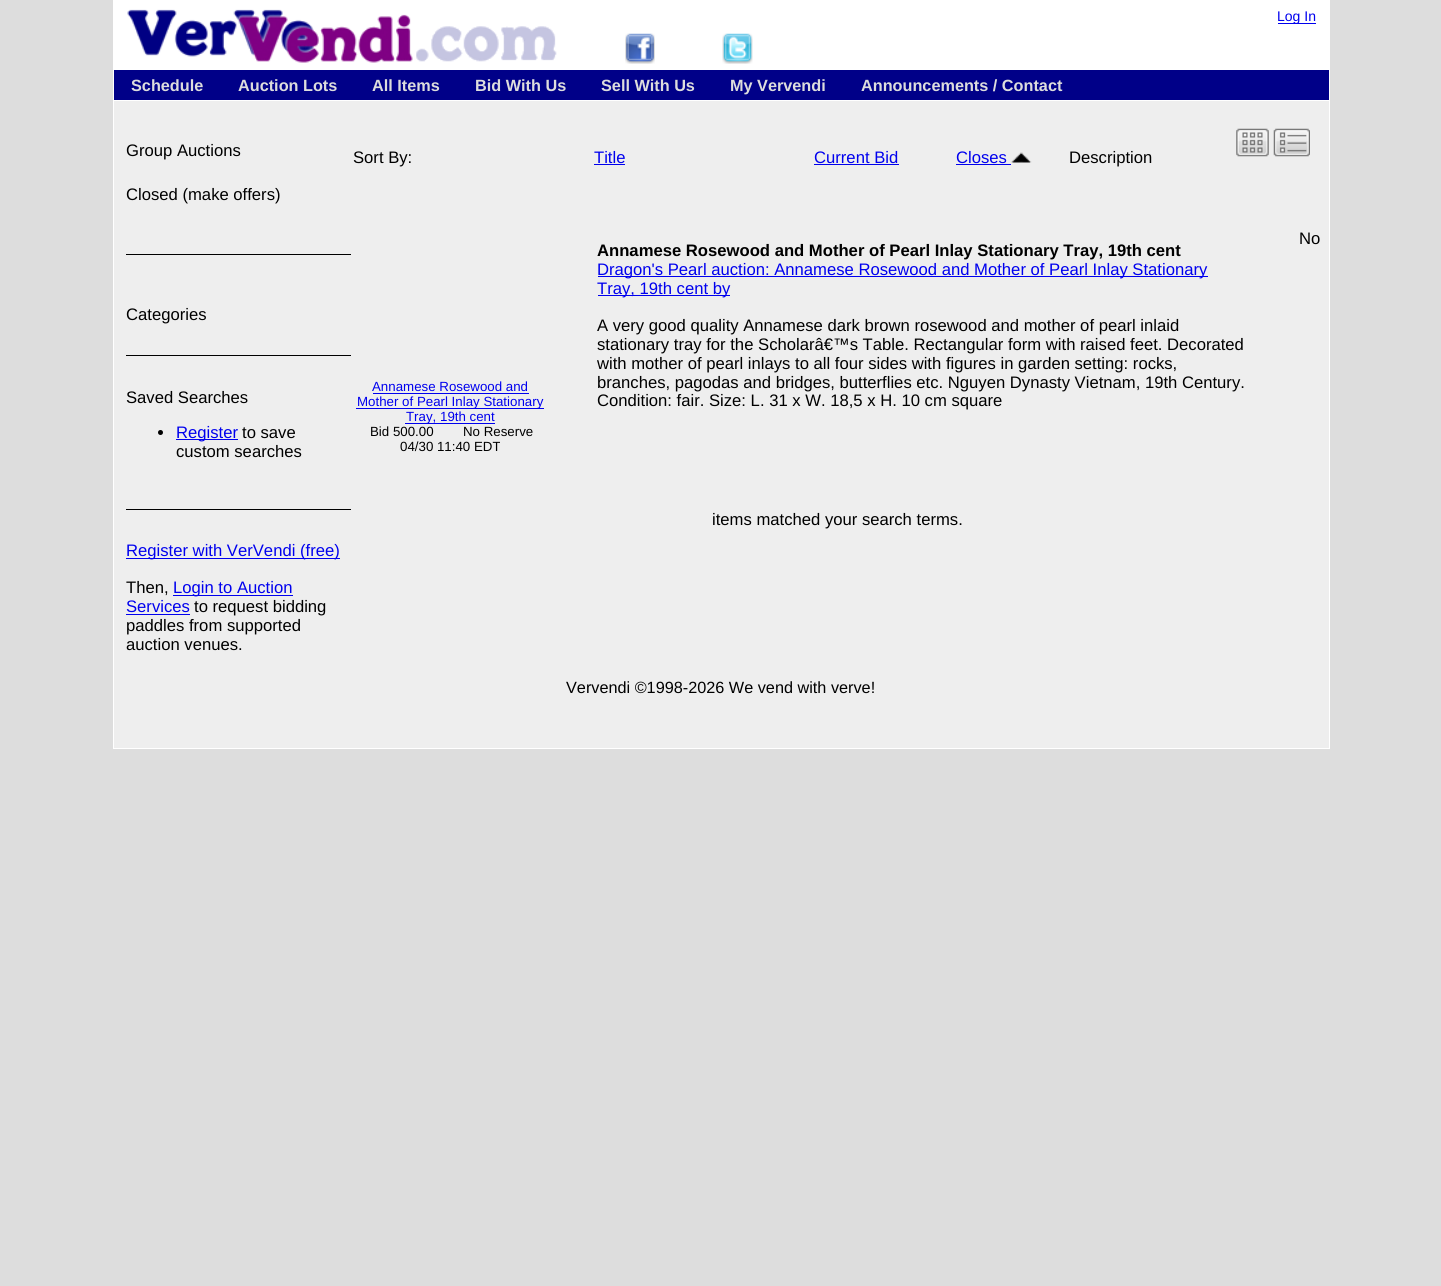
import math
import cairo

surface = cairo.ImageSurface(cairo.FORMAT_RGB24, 1441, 1286)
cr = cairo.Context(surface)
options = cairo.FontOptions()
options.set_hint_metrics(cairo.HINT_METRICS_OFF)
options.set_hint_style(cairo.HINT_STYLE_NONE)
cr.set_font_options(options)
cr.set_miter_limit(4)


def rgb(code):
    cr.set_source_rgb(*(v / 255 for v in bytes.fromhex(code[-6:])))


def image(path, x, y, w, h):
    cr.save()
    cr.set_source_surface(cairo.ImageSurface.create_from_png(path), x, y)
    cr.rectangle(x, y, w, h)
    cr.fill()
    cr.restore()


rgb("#dddddd")
cr.paint()
rgb("#eeeeee")
cr.rectangle(114, 101, 1215, 647)
cr.fill()
cr.rectangle(113.5, 0.5, 1216, 748)
rgb("#ffffff")
cr.set_line_width(1)
cr.stroke()
cr.rectangle(114, 1, 1215, 69)
cr.fill()
image("img/1.png", 127, 9, 430, 54)
image("img/2.png", 625, 33, 30, 31)
image("img/3.png", 722, 33, 31, 31)
for x, y, w, h, color in [
    (1278, 23, 38, 1, "#0000ee"),
    (114, 70, 1215, 30, "#000088"),
    (114, 100, 1215, 1, "#ffffff"),
    (126, 254, 225, 1, "#000000"),
    (126, 355, 225, 1, "#000000"),
    (126, 509, 225, 1, "#000000"),
]:
    rgb(color)
    cr.rectangle(x, y, w, h)
    cr.fill()
cr.arc(160.5, 432.5, 2.5, 0, 2 * math.pi)
cr.fill()
for x, y, w, h, color in [
    (176, 439, 62, 1, "#0000ee"),
    (126, 558, 214, 1, "#0000ee"),
    (173, 595, 120, 1, "#0000ee"),
    (126, 614, 64, 1, "#0000ee"),
    (594, 164, 31, 1, "#0000ee"),
    (814, 164, 85, 1, "#0000ee"),
    (956, 164, 55, 1, "#0000ee"),
]:
    rgb(color)
    cr.rectangle(x, y, w, h)
    cr.fill()
image("img/4.png", 1011, 152, 21, 11)
image("img/5.png", 1236, 128, 33, 29)
image("img/6.png", 1273, 128, 37, 29)
for x, y, w, h, color in [
    (373, 393, 156, 1, "#0000ee"),
    (356, 408, 188, 1, "#0000ee"),
    (405, 423, 90, 1, "#0000ee"),
    (598, 276, 610, 1, "#0000ee"),
    (598, 295, 132, 1, "#0000ee"),
]:
    rgb(color)
    cr.rectangle(x, y, w, h)
    cr.fill()
cr.select_font_face("Liberation Sans")
cr.set_font_size(14)
cr.move_to(1277, 21)
cr.show_text("Log In")
cr.select_font_face("Liberation Sans", cairo.FONT_SLANT_NORMAL, cairo.FONT_WEIGHT_BOLD)
cr.set_font_size(16.25)
rgb("#dddddd")
for x, y, s in [
    (131, 91, "Schedule"),
    (238, 91, "Auction Lots"),
    (372, 91, "All Items"),
    (475, 91, "Bid With Us"),
    (601, 91, "Sell With Us"),
    (730, 91, "My Vervendi"),
    (861, 91, "Announcements / Contact"),
]:
    cr.move_to(x, y)
    cr.show_text(s)
cr.select_font_face("Liberation Sans")
cr.set_font_size(16.65)
rgb("#000000")
for x, y, s in [
    (126, 156, "Group Auctions"),
    (126, 200, "Closed (make offers)"),
    (126, 320, "Categories"),
    (126, 403, "Saved Searches"),
]:
    cr.move_to(x, y)
    cr.show_text(s)
rgb("#0000ee")
cr.move_to(176, 438)
cr.show_text("Register")
rgb("#000000")
cr.move_to(242, 438)
cr.show_text("to save")
cr.move_to(176, 457)
cr.show_text("custom searches")
rgb("#0000ee")
cr.move_to(126, 556)
cr.show_text("Register with VerVendi (free)")
rgb("#000000")
cr.move_to(126, 593)
cr.show_text("Then,")
rgb("#0000ee")
cr.move_to(173, 593)
cr.show_text("Login to Auction")
cr.move_to(126, 612)
cr.show_text("Services")
rgb("#000000")
for x, y, s in [
    (194, 612, "to request bidding"),
    (126, 631, "paddles from supported"),
    (126, 650, "auction venues."),
    (353, 163, "Sort By:"),
]:
    cr.move_to(x, y)
    cr.show_text(s)
rgb("#0000ee")
for x, y, s in [
    (594, 163, "Title"),
    (814, 163, "Current Bid"),
    (956, 163, "Closes"),
]:
    cr.move_to(x, y)
    cr.show_text(s)
rgb("#000000")
for x, y, s in [
    (1069, 163, "Description"),
    (1299, 244, "No"),
    (712, 525, "items matched your search terms."),
]:
    cr.move_to(x, y)
    cr.show_text(s)
cr.set_font_size(13.3)
rgb("#0000ee")
for x, y, s in [
    (372, 391, "Annamese Rosewood and"),
    (357, 406, "Mother of Pearl Inlay Stationary"),
    (406, 421, "Tray, 19th cent"),
]:
    cr.move_to(x, y)
    cr.show_text(s)
rgb("#000000")
for x, y, s in [
    (370, 436, "Bid 500.00"),
    (463, 436, "No Reserve"),
    (400, 451, "04/30 11:40 EDT"),
]:
    cr.move_to(x, y)
    cr.show_text(s)
cr.select_font_face("Liberation Sans", cairo.FONT_SLANT_NORMAL, cairo.FONT_WEIGHT_BOLD)
cr.set_font_size(16.65)
cr.move_to(597, 256)
cr.show_text("Annamese Rosewood and Mother of Pearl Inlay Stationary Tray, 19th cent")
cr.select_font_face("Liberation Sans")
rgb("#0000ee")
cr.move_to(597, 275)
cr.show_text("Dragon's Pearl auction: Annamese Rosewood and Mother of Pearl Inlay Stationary")
cr.move_to(597, 294)
cr.show_text("Tray, 19th cent by")
rgb("#000000")
for x, y, s in [
    (597, 331, "A very good quality Annamese dark brown rosewood and mother of pearl inlaid"),
    (597, 350, "stationary tray for the Scholarâ€™s Table. Rectangular form with raised feet. Decorated"),
    (597, 369, "with mother of pearl inlays to all four sides with figures in garden setting: rocks,"),
    (597, 388, "branches, pagodas and bridges, butterflies etc. Nguyen Dynasty Vietnam, 19th Century."),
    (597, 406, "Condition: fair. Size: L. 31 x W. 18,5 x H. 10 cm square"),
]:
    cr.move_to(x, y)
    cr.show_text(s)
cr.set_font_size(16.25)
cr.move_to(566, 693)
cr.show_text("Vervendi ©1998-2026 We vend with verve!")
surface.write_to_png("page.png")
